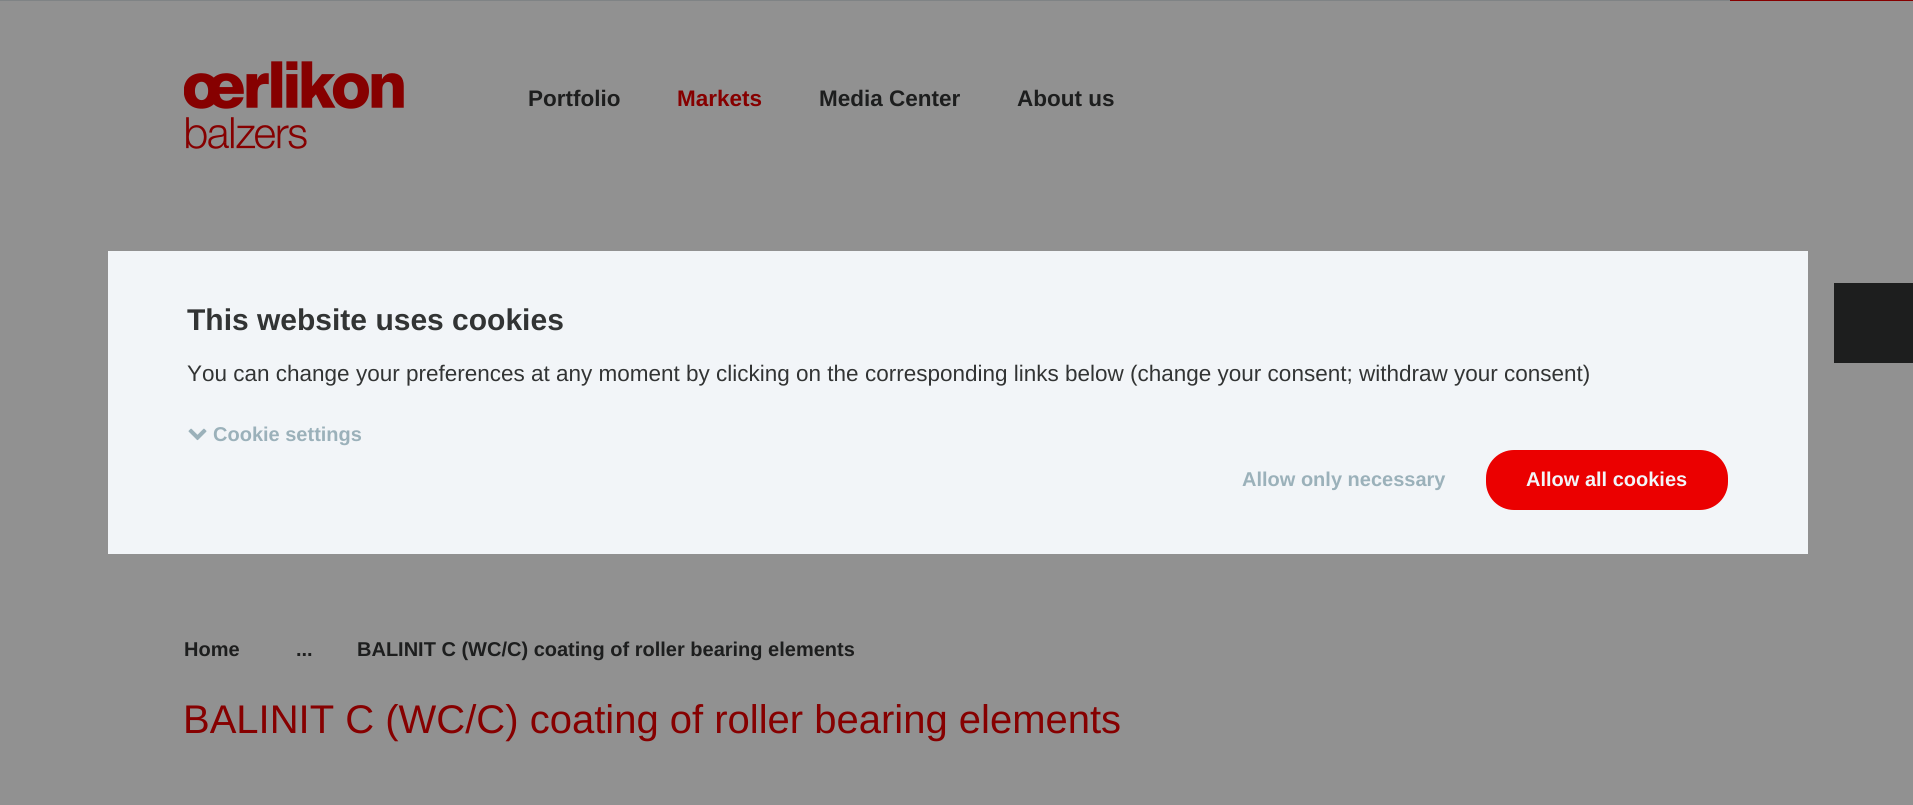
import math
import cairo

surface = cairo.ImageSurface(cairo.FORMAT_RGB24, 1913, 805)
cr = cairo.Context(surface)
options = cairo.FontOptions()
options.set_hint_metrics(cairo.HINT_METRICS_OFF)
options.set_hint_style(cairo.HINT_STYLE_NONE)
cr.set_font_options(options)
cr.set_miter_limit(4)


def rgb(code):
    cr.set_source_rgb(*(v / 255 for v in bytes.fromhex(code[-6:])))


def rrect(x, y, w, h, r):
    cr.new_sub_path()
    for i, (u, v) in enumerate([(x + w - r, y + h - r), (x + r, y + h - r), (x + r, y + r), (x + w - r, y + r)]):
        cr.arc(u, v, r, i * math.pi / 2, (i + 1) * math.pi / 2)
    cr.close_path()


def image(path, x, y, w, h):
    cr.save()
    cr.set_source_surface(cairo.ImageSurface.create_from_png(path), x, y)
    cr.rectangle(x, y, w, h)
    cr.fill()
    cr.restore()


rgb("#919191")
cr.paint()
rgb("#7f8385")
cr.rectangle(0, 0, 1730, 1)
cr.fill()
rgb("#860000")
cr.rectangle(1730, 0, 183, 1)
cr.fill()
image("img/1.png", 184, 61, 220, 88)
rgb("#1d1e1e")
cr.rectangle(1834, 283, 79, 80)
cr.fill()
rgb("#f2f5f8")
cr.rectangle(108, 251, 1700, 303)
cr.fill()
image("img/2.png", 188, 428, 19, 13)
rgb("#eb0000")
rrect(1488.5, 452.5, 237, 55, 25.5)
cr.fill_preserve()
cr.set_line_width(5)
cr.stroke()
cr.select_font_face("Liberation Sans", cairo.FONT_SLANT_NORMAL, cairo.FONT_WEIGHT_BOLD)
cr.set_font_size(22.5)
rgb("#1d1e1e")
cr.move_to(528, 106)
cr.show_text("Portfolio")
rgb("#860000")
cr.move_to(677, 106)
cr.show_text("Markets")
rgb("#1d1e1e")
cr.move_to(819, 106)
cr.show_text("Media Center")
cr.move_to(1017, 106)
cr.show_text("About us")
cr.set_font_size(20)
for x, y, s in [
    (184, 656, "Home"),
    (296, 656, "..."),
    (357, 656, "BALINIT C (WC/C) coating of roller bearing elements"),
]:
    cr.move_to(x, y)
    cr.show_text(s)
cr.select_font_face("Liberation Sans")
cr.set_font_size(40)
rgb("#860000")
cr.move_to(183, 733)
cr.show_text("BALINIT C (WC/C) coating of roller bearing elements")
cr.select_font_face("Liberation Sans", cairo.FONT_SLANT_NORMAL, cairo.FONT_WEIGHT_BOLD)
cr.set_font_size(30)
rgb("#323434")
cr.move_to(187, 330)
cr.show_text("This website uses cookies")
cr.select_font_face("Liberation Sans")
cr.set_font_size(22.5)
cr.move_to(187, 381)
cr.show_text("You can change your preferences at any moment by clicking on the corresponding links below (change your consent; withdraw your consent)")
cr.select_font_face("Liberation Sans", cairo.FONT_SLANT_NORMAL, cairo.FONT_WEIGHT_BOLD)
cr.set_font_size(20)
rgb("#9bb1ba")
cr.move_to(213, 441)
cr.show_text("Cookie settings")
cr.move_to(1242, 486)
cr.show_text("Allow only necessary")
rgb("#f2f5f8")
cr.move_to(1526, 486)
cr.show_text("Allow all cookies")
surface.write_to_png("page.png")
